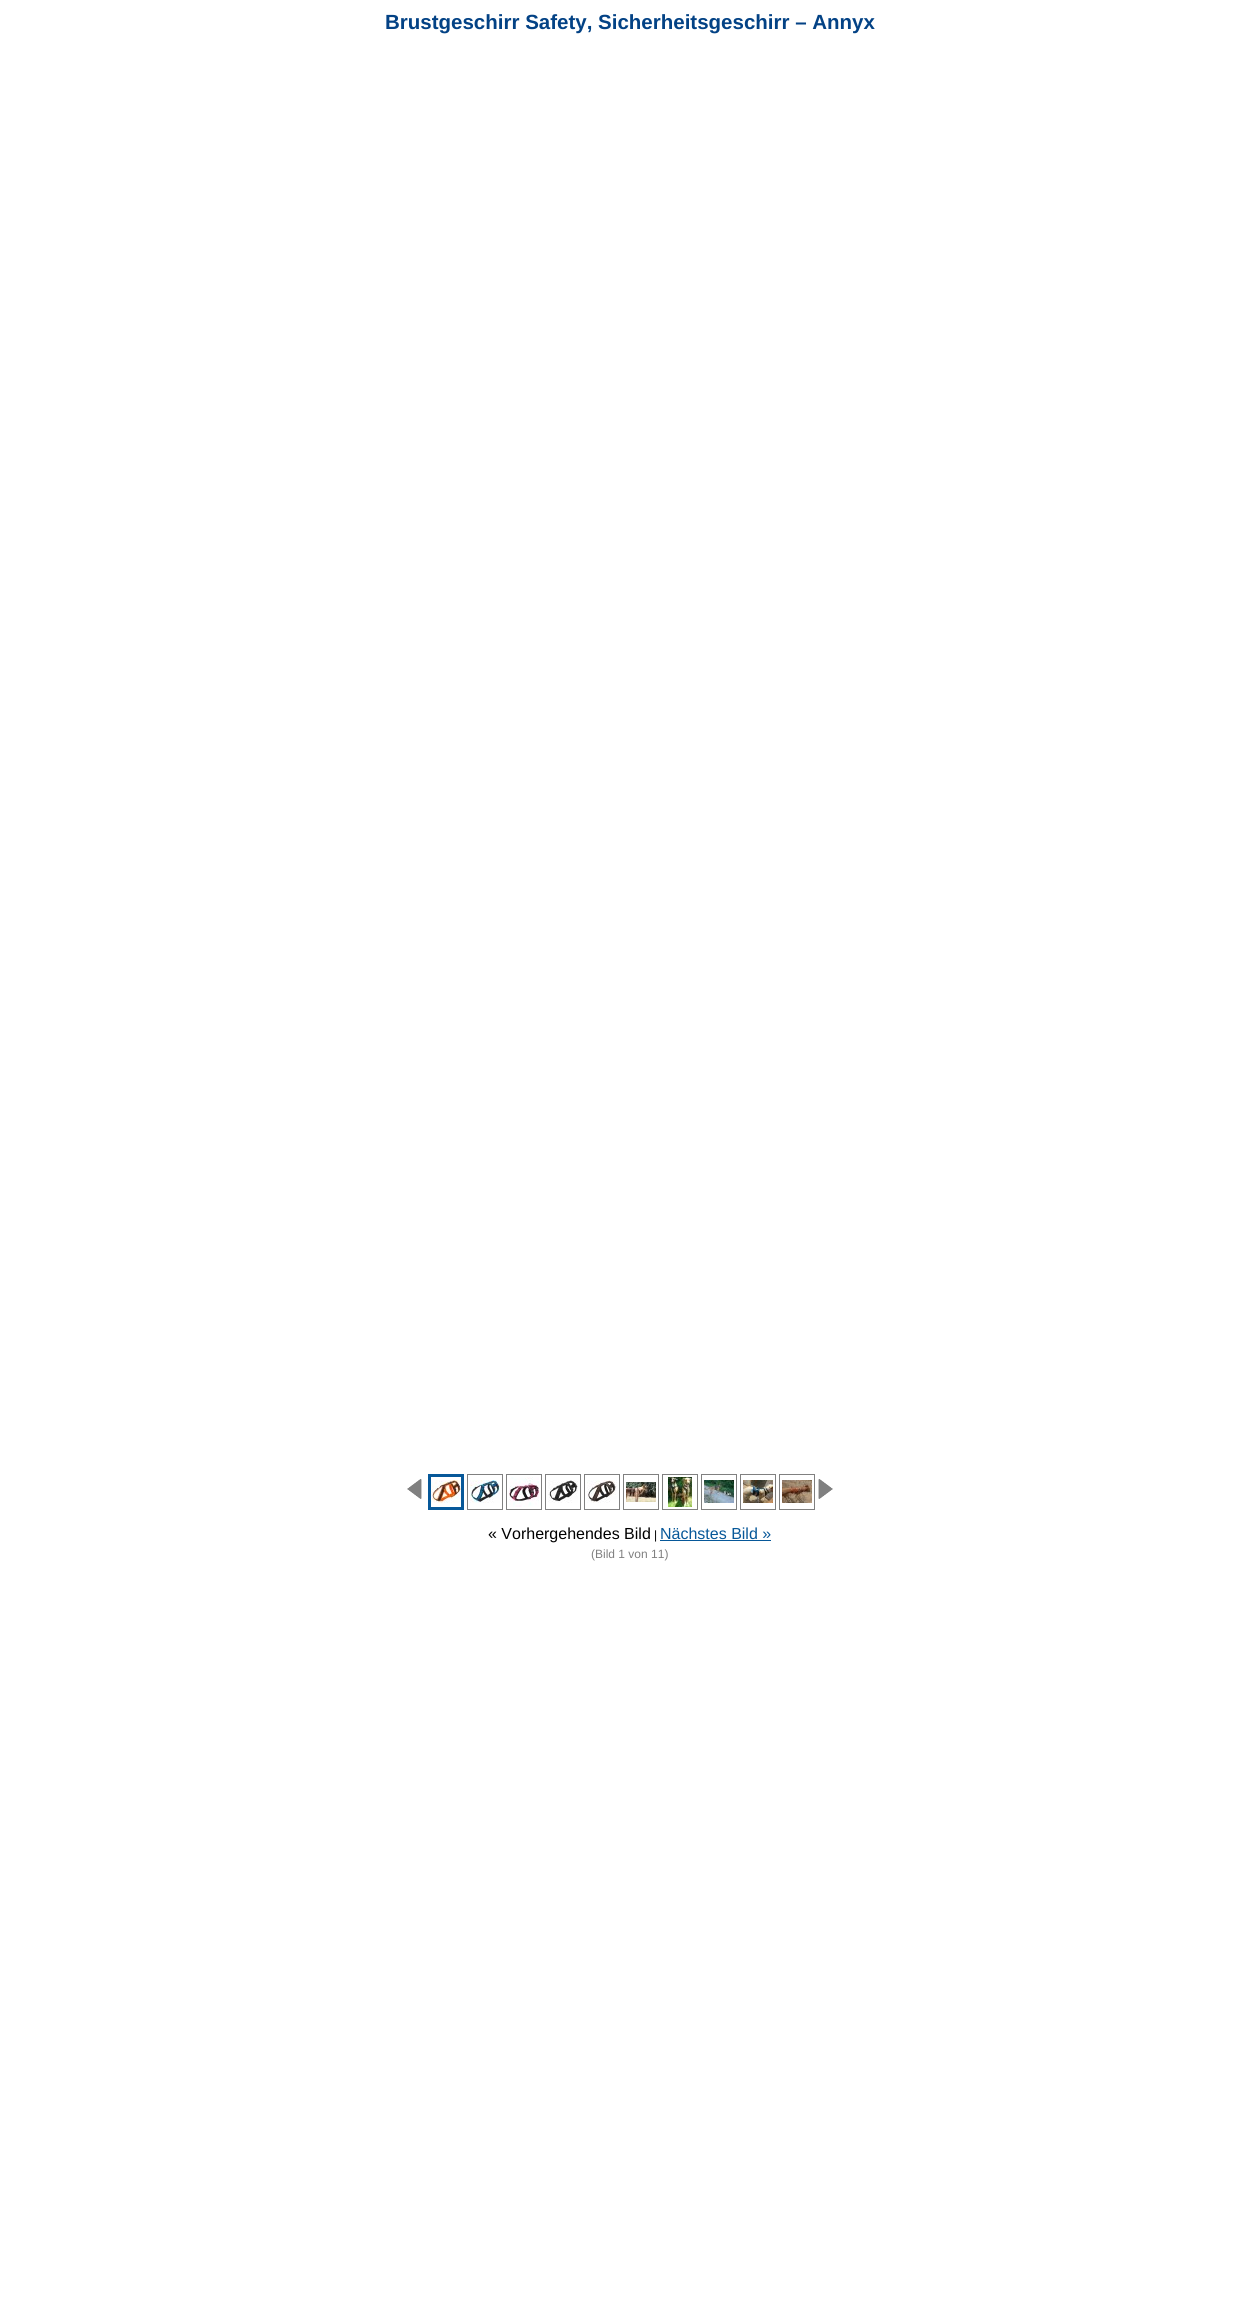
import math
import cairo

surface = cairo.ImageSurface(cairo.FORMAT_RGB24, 1259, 2319)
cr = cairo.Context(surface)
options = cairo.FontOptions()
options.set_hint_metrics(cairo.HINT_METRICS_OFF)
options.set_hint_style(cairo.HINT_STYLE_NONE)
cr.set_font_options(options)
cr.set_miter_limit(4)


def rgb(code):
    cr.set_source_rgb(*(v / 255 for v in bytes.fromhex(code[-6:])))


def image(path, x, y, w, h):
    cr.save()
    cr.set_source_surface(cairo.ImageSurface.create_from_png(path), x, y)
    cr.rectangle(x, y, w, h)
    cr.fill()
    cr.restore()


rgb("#ffffff")
cr.paint()
image("img/1.png", 407, 1479, 15, 20)
cr.rectangle(428.5, 1474.5, 35, 35)
rgb("#075899")
cr.set_line_width(1)
cr.stroke()
cr.rectangle(430, 1476, 32, 32)
cr.set_line_width(2)
cr.stroke()
image("img/2.png", 431, 1480, 30, 23)
cr.rectangle(467.5, 1474.5, 35, 35)
rgb("#808080")
cr.set_line_width(1)
cr.stroke()
image("img/3.png", 470, 1480, 30, 23)
cr.rectangle(506.5, 1474.5, 35, 35)
cr.stroke()
image("img/4.png", 509, 1477, 30, 30)
cr.rectangle(545.5, 1474.5, 35, 35)
cr.stroke()
image("img/5.png", 548, 1480, 30, 23)
cr.rectangle(584.5, 1474.5, 35, 35)
cr.stroke()
image("img/6.png", 587, 1480, 30, 23)
cr.rectangle(623.5, 1474.5, 35, 35)
cr.stroke()
image("img/7.png", 626, 1482, 30, 20)
cr.rectangle(662.5, 1474.5, 35, 35)
cr.stroke()
image("img/8.png", 668, 1477, 24, 30)
cr.rectangle(701.5, 1474.5, 35, 35)
cr.stroke()
image("img/9.png", 704, 1480, 30, 23)
cr.rectangle(740.5, 1474.5, 35, 35)
cr.stroke()
image("img/10.png", 743, 1480, 30, 23)
cr.rectangle(779.5, 1474.5, 35, 35)
cr.stroke()
image("img/11.png", 782, 1480, 30, 23)
image("img/12.png", 818, 1479, 15, 20)
rgb("#075899")
cr.rectangle(660, 1540, 111, 1)
cr.fill()
cr.select_font_face("Liberation Sans", cairo.FONT_SLANT_NORMAL, cairo.FONT_WEIGHT_BOLD)
cr.set_font_size(20.5)
rgb("#034285")
cr.move_to(385, 29)
cr.show_text("Brustgeschirr Safety, Sicherheitsgeschirr – Annyx")
cr.select_font_face("Liberation Sans")
cr.set_font_size(16)
rgb("#000000")
cr.move_to(488, 1539)
cr.show_text("« Vorhergehendes Bild")
cr.set_font_size(12)
cr.move_to(654, 1539)
cr.show_text("|")
cr.set_font_size(16)
rgb("#075899")
cr.move_to(660, 1539)
cr.show_text("Nächstes Bild »")
cr.set_font_size(12)
rgb("#808080")
cr.move_to(591, 1558)
cr.show_text("(Bild 1 von 11)")
surface.write_to_png("page.png")
